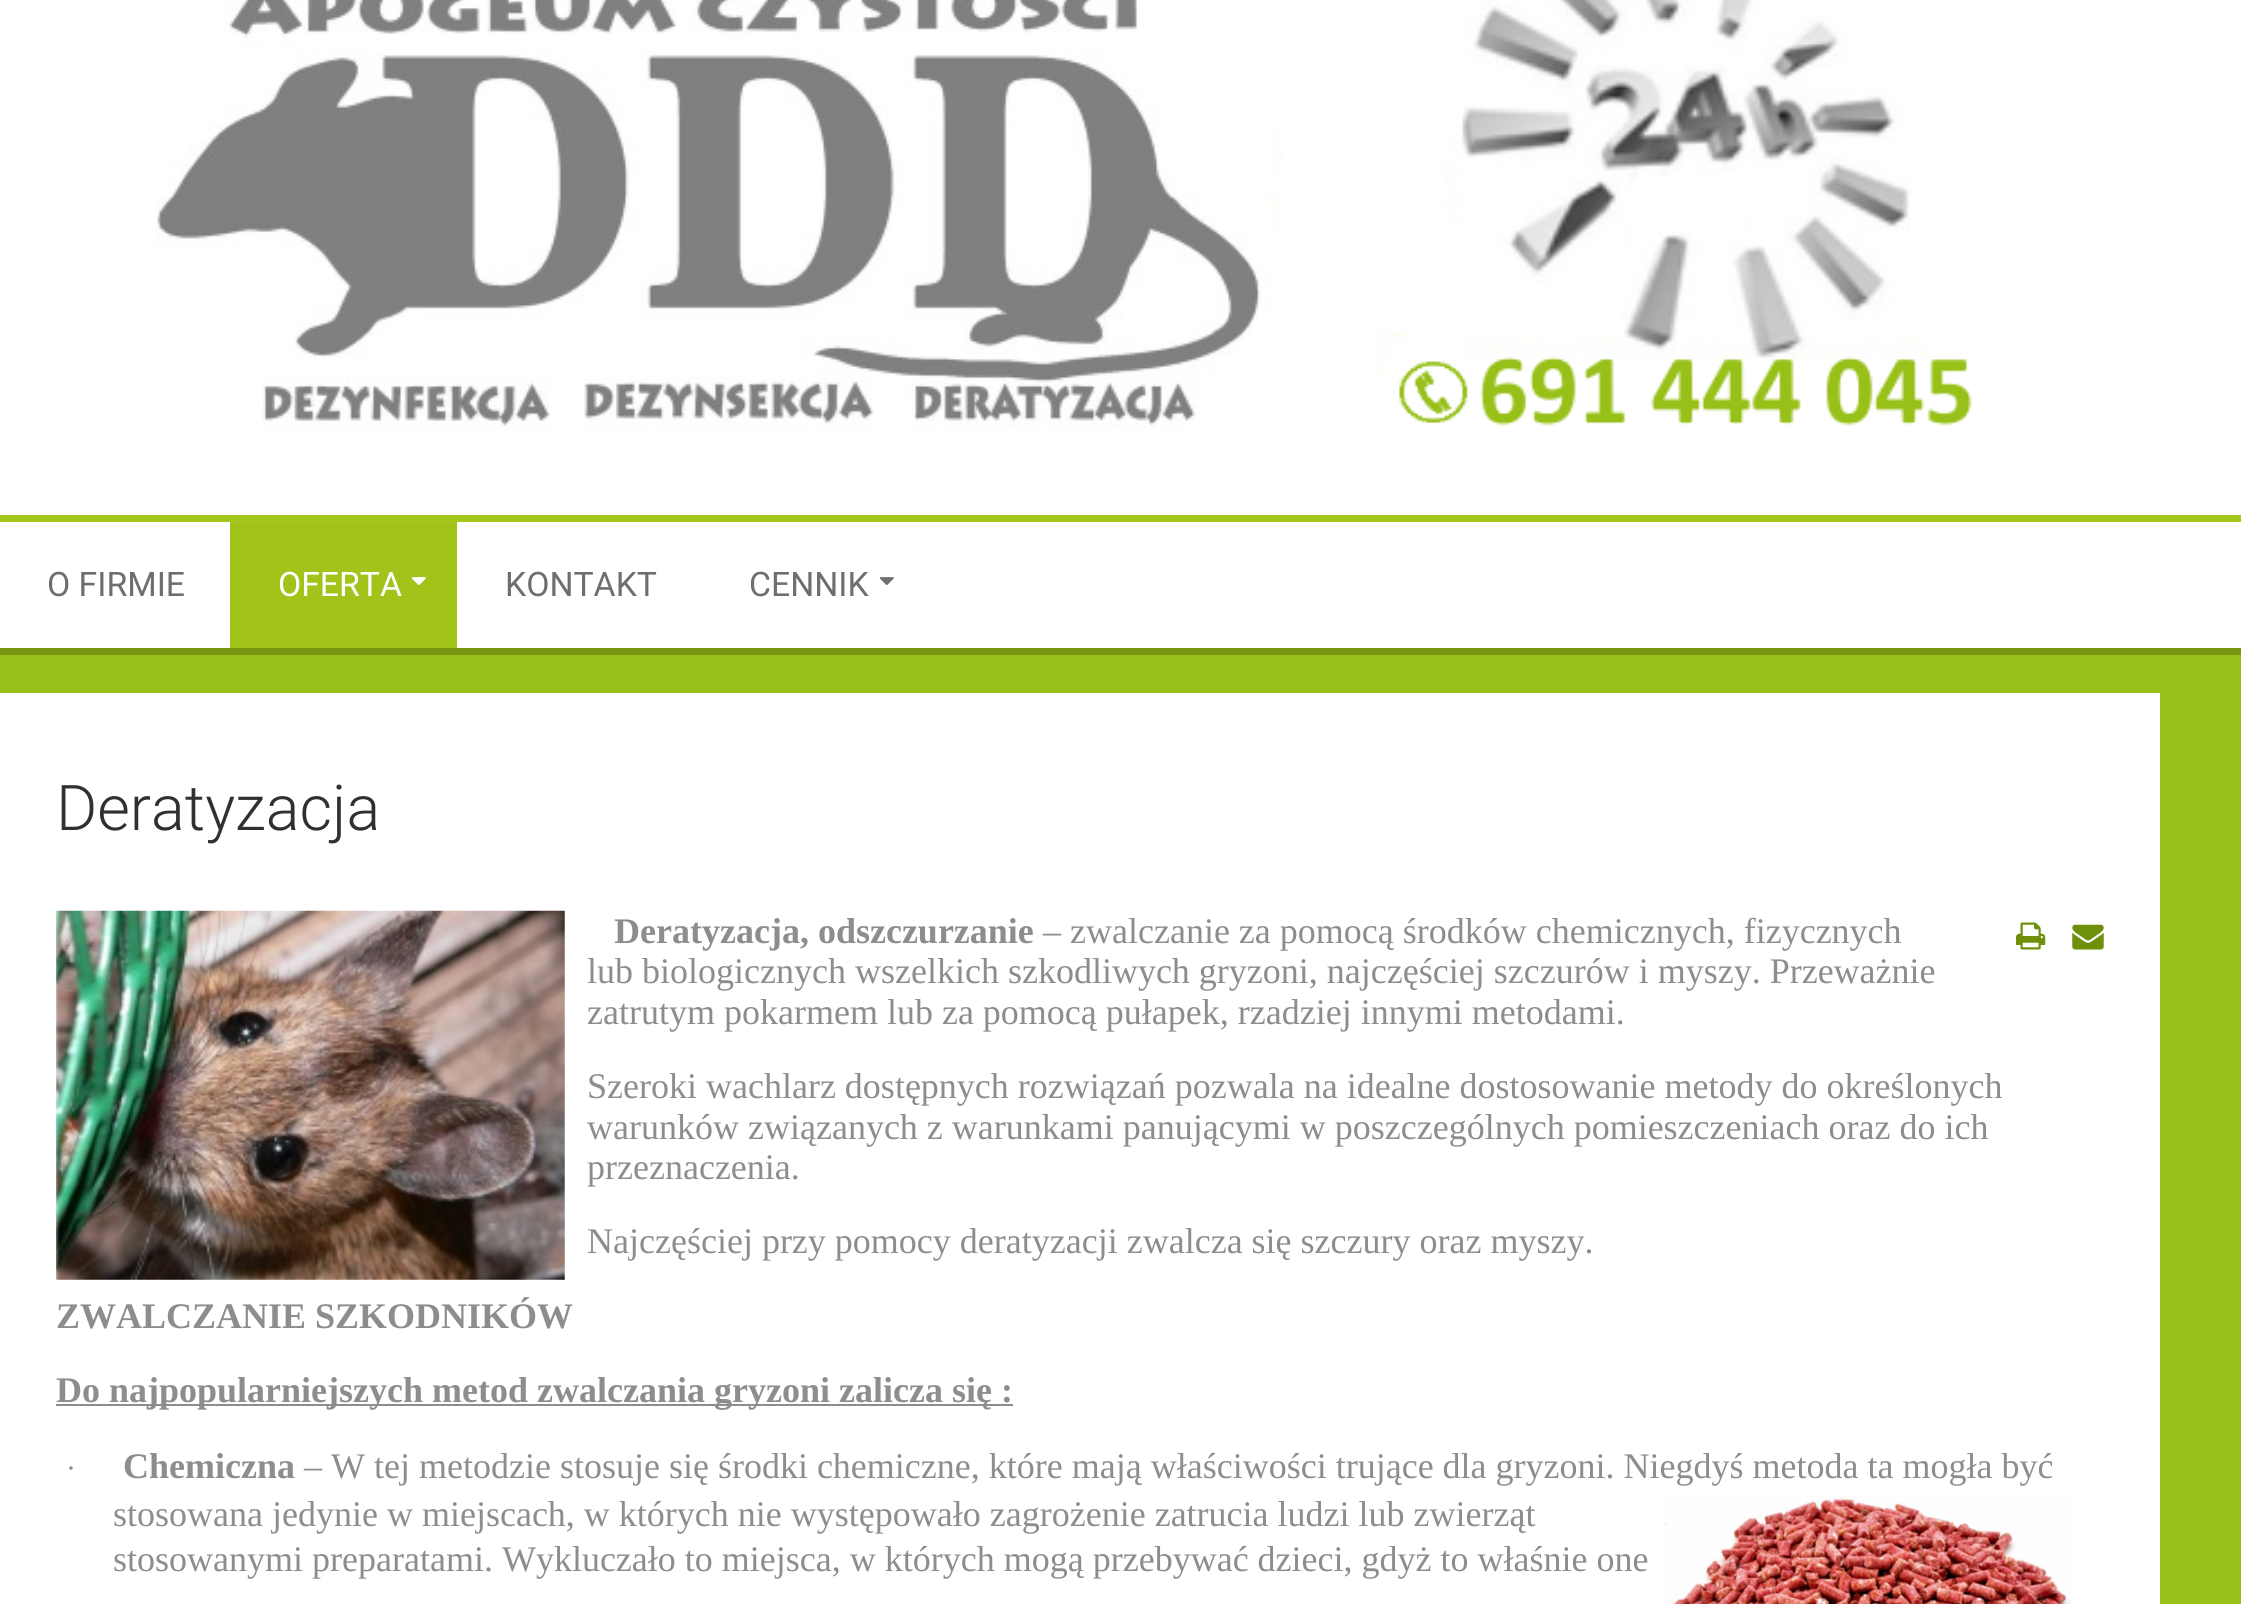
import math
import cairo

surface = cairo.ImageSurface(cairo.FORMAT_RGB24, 2241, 1604)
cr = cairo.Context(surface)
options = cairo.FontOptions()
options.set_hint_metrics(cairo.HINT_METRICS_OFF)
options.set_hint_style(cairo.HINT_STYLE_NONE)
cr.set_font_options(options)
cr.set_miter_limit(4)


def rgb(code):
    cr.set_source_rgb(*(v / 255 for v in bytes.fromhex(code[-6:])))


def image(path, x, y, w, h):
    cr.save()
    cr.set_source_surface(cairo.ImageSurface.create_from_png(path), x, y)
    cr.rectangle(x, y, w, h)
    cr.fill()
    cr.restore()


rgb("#97c019")
cr.paint()
rgb("#ffffff")
cr.rectangle(0, 0, 2241, 515)
cr.fill()
image("img/1.png", 156, 0, 1816, 435)
for x, y, w, h, color in [
    (0, 522, 2241, 126, "#ffffff"),
    (0, 515, 2241, 7, "#a5c61b"),
    (230, 522, 227, 126, "#a1c31a"),
]:
    rgb(color)
    cr.rectangle(x, y, w, h)
    cr.fill()
image("img/2.png", 411, 577, 15, 8)
image("img/3.png", 879, 577, 15, 8)
rgb("#769512")
cr.rectangle(0, 648, 2241, 7)
cr.fill()
rgb("#ffffff")
cr.rectangle(0, 693, 2160, 911)
cr.fill()
image("img/4.png", 56, 910, 509, 370)
rgb("#8d8d8d")
cr.rectangle(56, 1404, 957, 2)
cr.fill()
image("img/5.png", 1663, 1496, 410, 108)
image("img/6.png", 2016, 922, 30, 28)
image("img/7.png", 2072, 924, 32, 26)
cr.select_font_face("Roboto")
cr.set_font_size(33.75)
rgb("#6e6e6e")
cr.move_to(47, 596)
cr.show_text("O FIRMIE")
rgb("#ffffff")
cr.move_to(278, 596)
cr.show_text("OFERTA")
rgb("#6e6e6e")
cr.move_to(505, 596)
cr.show_text("KONTAKT")
cr.move_to(749, 596)
cr.show_text("CENNIK")
cr.select_font_face("Roboto Light")
cr.set_font_size(63)
rgb("#303030")
cr.move_to(56, 830)
cr.show_text("Deratyzacja")
cr.select_font_face("Liberation Serif", cairo.FONT_SLANT_NORMAL, cairo.FONT_WEIGHT_BOLD)
cr.set_font_size(36)
rgb("#8d8d8d")
cr.move_to(614, 943)
cr.show_text("Deratyzacja, odszczurzanie")
cr.select_font_face("Liberation Serif")
for x, y, s in [
    (1043, 943, "– zwalczanie za pomocą środków chemicznych, fizycznych"),
    (587, 983, "lub biologicznych wszelkich szkodliwych gryzoni, najczęściej szczurów i myszy. Przeważnie"),
    (587, 1024, "zatrutym pokarmem lub za pomocą pułapek, rzadziej innymi metodami."),
    (587, 1098, "Szeroki wachlarz dostępnych rozwiązań pozwala na idealne dostosowanie metody do określonych"),
    (587, 1139, "warunków związanych z warunkami panującymi w poszczególnych pomieszczeniach oraz do ich"),
    (587, 1179, "przeznaczenia."),
    (587, 1253, "Najczęściej przy pomocy deratyzacji zwalcza się szczury oraz myszy."),
]:
    cr.move_to(x, y)
    cr.show_text(s)
cr.select_font_face("Liberation Serif", cairo.FONT_SLANT_NORMAL, cairo.FONT_WEIGHT_BOLD)
cr.move_to(56, 1328)
cr.show_text("ZWALCZANIE SZKODNIKÓW")
cr.move_to(56, 1402)
cr.show_text("Do najpopularniejszych metod zwalczania gryzoni zalicza się :")
cr.select_font_face("Liberation Serif")
for x, y, s in [
    (304, 1478, "– W tej metodzie stosuje się środki chemiczne, które mają właściwości trujące dla gryzoni. Niegdyś metoda ta mogła być"),
    (113, 1526, "stosowana jedynie w miejscach, w których nie występowało zagrożenie zatrucia ludzi lub zwierząt"),
    (113, 1571, "stosowanymi preparatami. Wykluczało to miejsca, w których mogą przebywać dzieci, gdyż to właśnie one"),
]:
    cr.move_to(x, y)
    cr.show_text(s)
cr.set_font_size(30)
cr.move_to(66, 1478)
cr.show_text("·")
cr.select_font_face("Liberation Serif", cairo.FONT_SLANT_NORMAL, cairo.FONT_WEIGHT_BOLD)
cr.set_font_size(36)
cr.move_to(123, 1478)
cr.show_text("Chemiczna")
surface.write_to_png("page.png")
